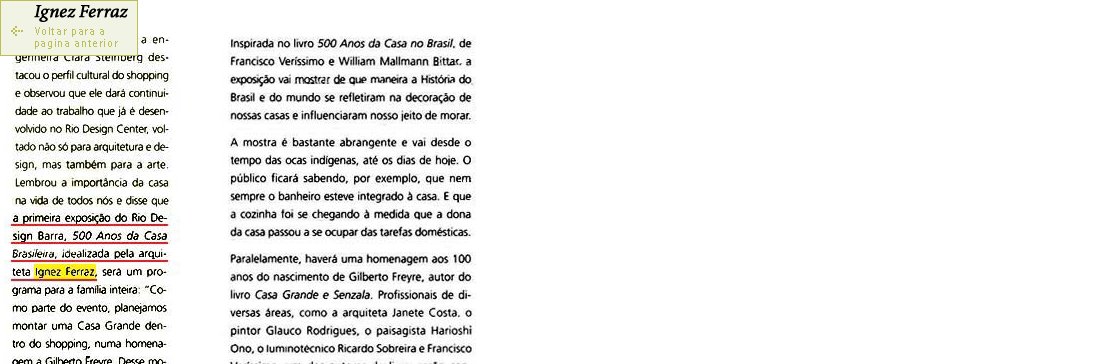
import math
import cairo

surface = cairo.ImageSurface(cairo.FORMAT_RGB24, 1117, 364)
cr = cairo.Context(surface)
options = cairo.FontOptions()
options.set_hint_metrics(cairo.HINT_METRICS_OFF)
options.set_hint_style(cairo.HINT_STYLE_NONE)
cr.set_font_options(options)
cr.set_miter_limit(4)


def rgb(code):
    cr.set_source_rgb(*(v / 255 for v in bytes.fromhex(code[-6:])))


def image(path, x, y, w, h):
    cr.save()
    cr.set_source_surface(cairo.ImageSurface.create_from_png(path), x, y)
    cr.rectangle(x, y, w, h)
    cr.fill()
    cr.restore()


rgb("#ffffff")
cr.paint()
image("img/2.png", 4, 28, 472, 336)
image("img/1.png", 0, 0, 138, 56)
surface.write_to_png("page.png")
